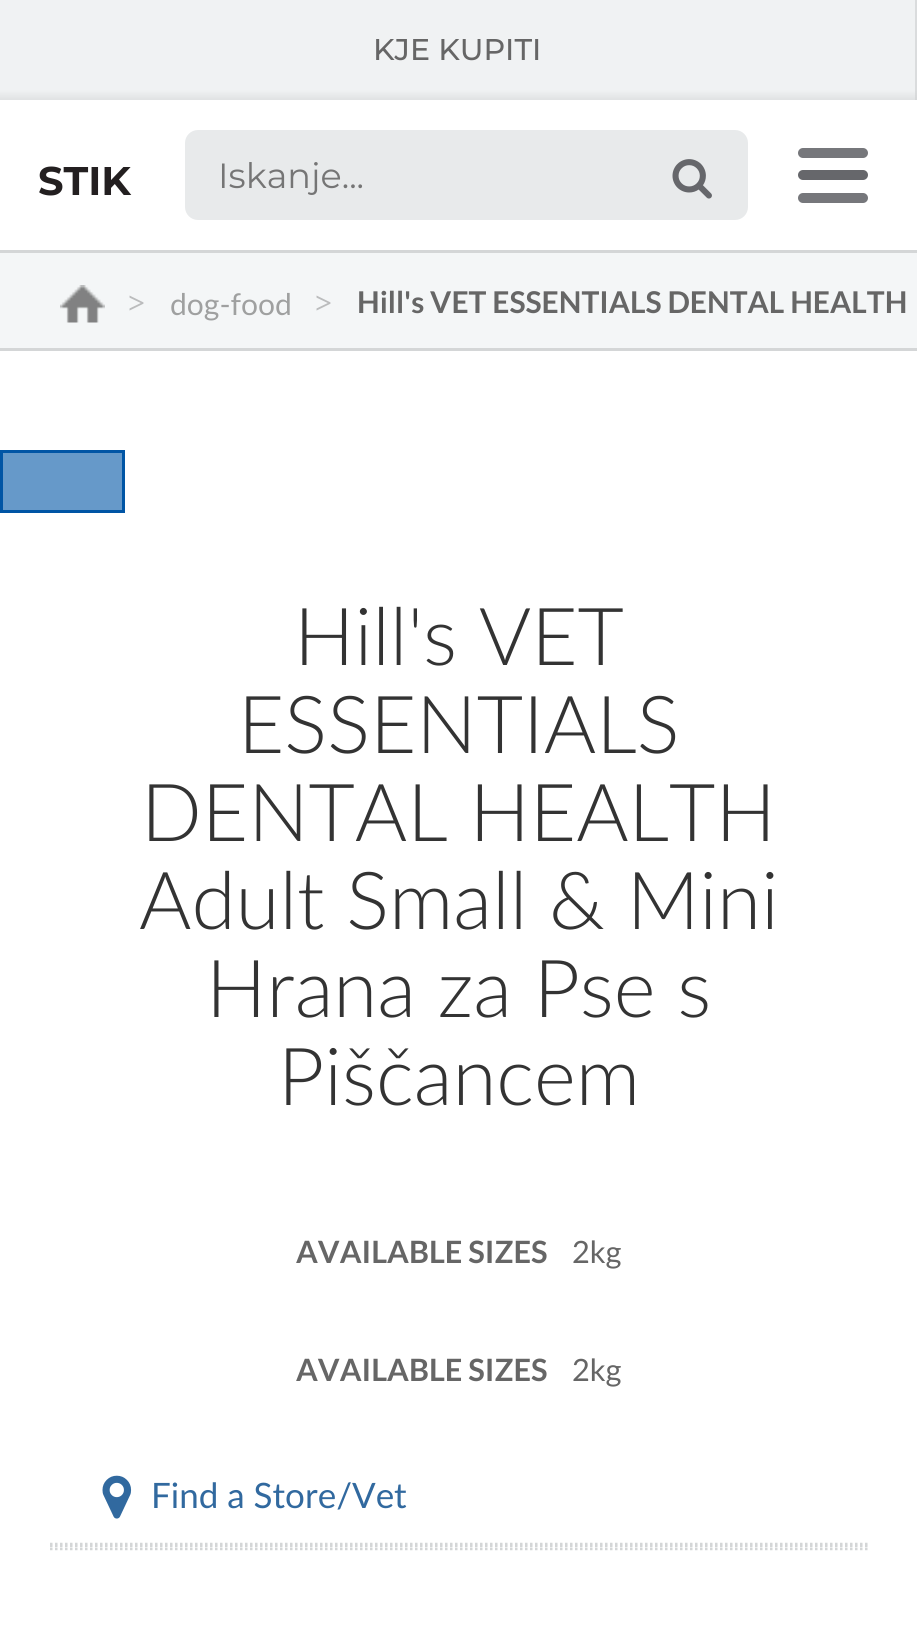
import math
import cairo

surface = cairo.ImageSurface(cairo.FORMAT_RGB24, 917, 1633)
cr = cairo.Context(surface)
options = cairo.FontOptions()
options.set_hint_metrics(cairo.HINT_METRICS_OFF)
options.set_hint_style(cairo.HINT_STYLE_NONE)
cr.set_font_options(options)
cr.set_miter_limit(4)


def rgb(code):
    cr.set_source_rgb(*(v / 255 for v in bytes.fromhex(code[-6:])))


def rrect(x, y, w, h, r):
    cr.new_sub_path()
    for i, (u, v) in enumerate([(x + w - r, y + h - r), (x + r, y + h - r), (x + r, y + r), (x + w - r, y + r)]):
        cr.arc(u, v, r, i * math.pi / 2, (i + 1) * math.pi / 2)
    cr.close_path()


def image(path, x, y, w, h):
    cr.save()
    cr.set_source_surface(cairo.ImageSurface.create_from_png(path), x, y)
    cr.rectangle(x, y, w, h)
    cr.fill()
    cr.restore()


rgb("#ffffff")
cr.paint()
gradient = cairo.LinearGradient(458, 0, 458, 100)
gradient.add_color_stop_rgba(0.9, 0.941, 0.949, 0.953, 1)
gradient.add_color_stop_rgba(1, 0.878, 0.886, 0.89, 1)
cr.set_source(gradient)
cr.rectangle(0, 0, 915, 100)
cr.fill()
gradient = cairo.LinearGradient(458, 0, 458, 100)
gradient.add_color_stop_rgba(0.9, 0.855, 0.863, 0.867, 1)
gradient.add_color_stop_rgba(1, 0.835, 0.843, 0.847, 1)
cr.set_source(gradient)
cr.rectangle(915, 0, 2, 100)
cr.fill()
rgb("#e8eaeb")
rrect(186.5, 131.5, 560, 87, 11.5)
cr.fill_preserve()
cr.set_line_width(3)
cr.stroke()
image("img/1.png", 672, 159, 40, 40)
rgb("#66676b")
rrect(798, 170, 70, 10, 5)
cr.fill()
rgb("#76777b")
rrect(798, 148, 70, 10, 5)
cr.fill()
rrect(798, 193, 70, 10, 5)
cr.fill()
for x, y, w, h, color in [
    (0, 253, 917, 95, "#f4f6f7"),
    (0, 250, 917, 3, "#d4d6d7"),
    (0, 348, 917, 3, "#d4d6d7"),
]:
    rgb(color)
    cr.rectangle(x, y, w, h)
    cr.fill()
image("img/2.png", 60, 285, 45, 38)
cr.rectangle(1.5, 451.5, 122, 60)
rgb("#0055a5")
cr.stroke()
cr.set_source_rgba(0, 0.333, 0.647, 0.6)
cr.rectangle(3, 453, 119, 57)
cr.fill()
image("img/3.png", 102, 1475, 30, 44)
cr.new_path()
cr.move_to(50, 1544)
cr.line_to(867.5, 1544)
rgb("#d4d6d7")
cr.set_line_width(2.5)
cr.set_dash([2.5, 2.5])
cr.stroke()
cr.new_path()
cr.move_to(50, 1546)
cr.line_to(867.5, 1546)
cr.stroke()
cr.new_path()
cr.move_to(50, 1549)
cr.line_to(867.5, 1549)
cr.stroke()
cr.select_font_face("Montserrat Medium")
cr.set_font_size(30)
rgb("#666666")
cr.move_to(373, 60)
cr.show_text("KJE KUPITI")
cr.select_font_face("Montserrat", cairo.FONT_SLANT_NORMAL, cairo.FONT_WEIGHT_BOLD)
cr.set_font_size(40)
rgb("#231f20")
cr.move_to(38, 195)
cr.show_text("STIK")
cr.select_font_face("Montserrat")
cr.set_font_size(35)
rgb("#757575")
cr.move_to(218, 188)
cr.show_text("Iskanje...")
cr.select_font_face("Liberation Serif", cairo.FONT_SLANT_NORMAL, cairo.FONT_WEIGHT_BOLD)
cr.set_font_size(30)
rgb("#bbbcbd")
cr.move_to(128, 313)
cr.show_text(">")
cr.select_font_face("Lato")
rgb("#9fa0a0")
cr.move_to(170, 315)
cr.show_text("dog-food")
cr.select_font_face("Liberation Serif", cairo.FONT_SLANT_NORMAL, cairo.FONT_WEIGHT_BOLD)
rgb("#bbbcbd")
cr.move_to(315, 313)
cr.show_text(">")
cr.select_font_face("Lato", cairo.FONT_SLANT_NORMAL, cairo.FONT_WEIGHT_BOLD)
rgb("#666666")
cr.move_to(357, 313)
cr.show_text("Hill's VET ESSENTIALS DENTAL HEALTH")
cr.select_font_face("Lato Light")
cr.set_font_size(80)
rgb("#333333")
for x, y, s in [
    (294, 665, "Hill's VET"),
    (238, 753, "ESSENTIALS"),
    (141, 841, "DENTAL HEALTH"),
    (139, 929, "Adult Small & Mini"),
    (206, 1017, "Hrana za Pse s"),
    (278, 1105, "Piščancem"),
]:
    cr.move_to(x, y)
    cr.show_text(s)
cr.select_font_face("Lato", cairo.FONT_SLANT_NORMAL, cairo.FONT_WEIGHT_BOLD)
cr.set_font_size(30.75)
rgb("#666666")
cr.move_to(296, 1263)
cr.show_text("AVAILABLE SIZES")
cr.select_font_face("Lato")
cr.move_to(572, 1263)
cr.show_text("2kg")
cr.select_font_face("Lato", cairo.FONT_SLANT_NORMAL, cairo.FONT_WEIGHT_BOLD)
cr.move_to(296, 1381)
cr.show_text("AVAILABLE SIZES")
cr.select_font_face("Lato")
cr.move_to(572, 1381)
cr.show_text("2kg")
cr.set_font_size(35)
rgb("#31699f")
cr.move_to(151, 1508)
cr.show_text("Find a Store/Vet")
surface.write_to_png("page.png")
